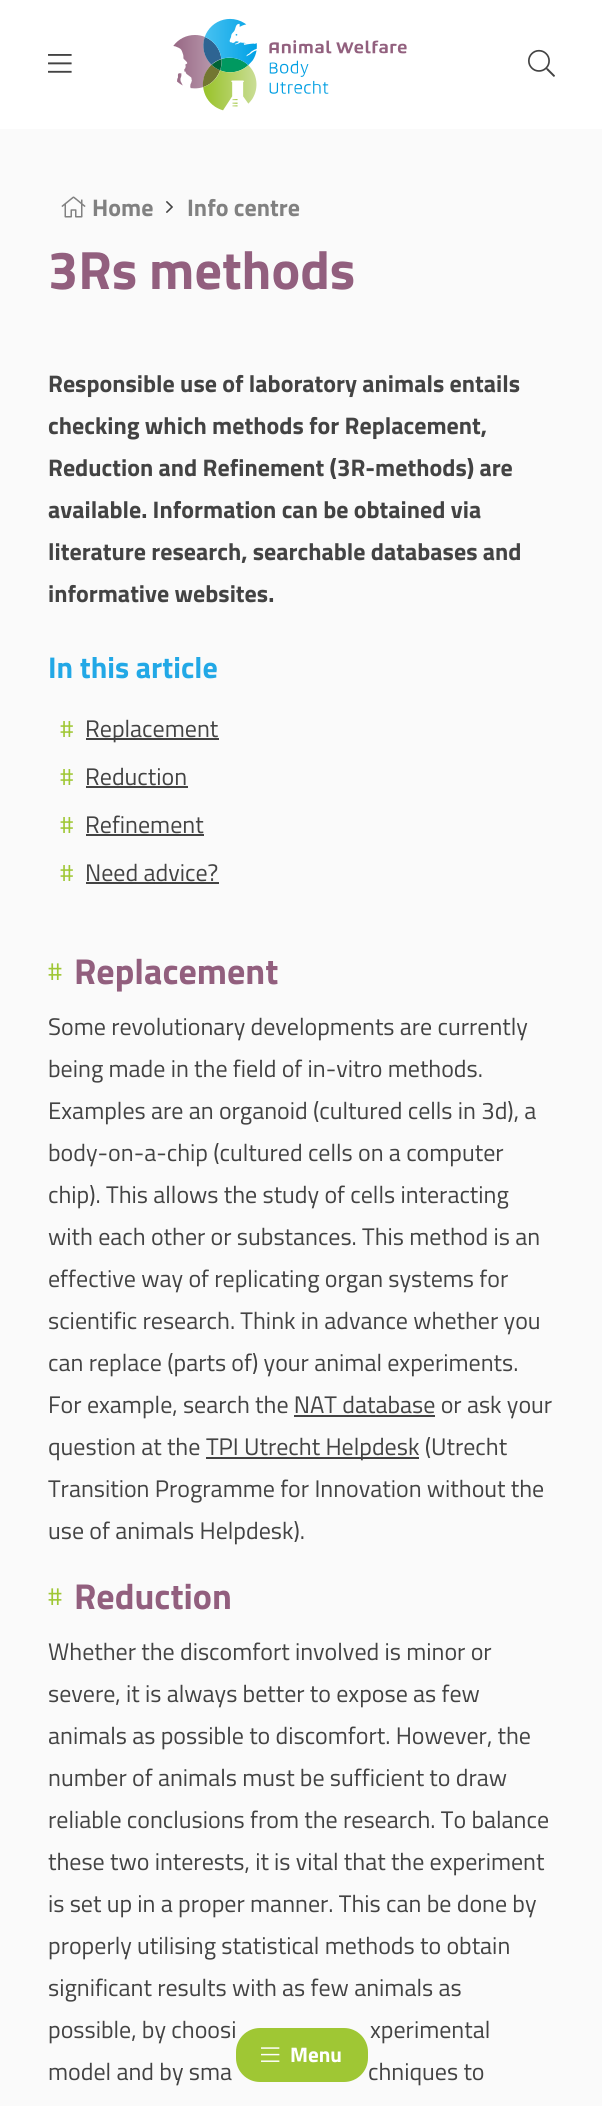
import math
import cairo

surface = cairo.ImageSurface(cairo.FORMAT_RGB24, 602, 2106)
cr = cairo.Context(surface)
options = cairo.FontOptions()
options.set_hint_metrics(cairo.HINT_METRICS_OFF)
options.set_hint_style(cairo.HINT_STYLE_NONE)
cr.set_font_options(options)
cr.set_miter_limit(4)


def rgb(code):
    cr.set_source_rgb(*(v / 255 for v in bytes.fromhex(code[-6:])))


def rrect(x, y, w, h, r):
    cr.new_sub_path()
    for i, (u, v) in enumerate([(x + w - r, y + h - r), (x + r, y + h - r), (x + r, y + r), (x + w - r, y + r)]):
        cr.arc(u, v, r, i * math.pi / 2, (i + 1) * math.pi / 2)
    cr.close_path()


def image(path, x, y, w, h):
    cr.save()
    cr.set_source_surface(cairo.ImageSurface.create_from_png(path), x, y)
    cr.rectangle(x, y, w, h)
    cr.fill()
    cr.restore()


rgb("#fafafa")
cr.paint()
rgb("#ffffff")
cr.rectangle(0, 0, 602, 129)
cr.fill()
image("img/1.png", 48, 54, 24, 19)
image("img/2.png", 173, 18, 234, 93)
image("img/3.png", 528, 49, 27, 28)
image("img/4.png", 61, 196, 25, 22)
image("img/5.png", 166, 201, 7, 12)
for x, y, w, h, color in [
    (86, 738, 133, 2, "#434343"),
    (86, 786, 102, 2, "#434343"),
    (86, 834, 118, 2, "#434343"),
    (86, 882, 133, 2, "#434343"),
    (294, 1415, 141, 2, "#434343"),
    (206, 1457, 213, 2, "#434343"),
]:
    rgb(color)
    cr.rectangle(x, y, w, h)
    cr.fill()
rgb("#9fc734")
rrect(236, 2028, 132, 54, 24)
cr.fill()
image("img/6.png", 261, 2047, 19, 15)
cr.select_font_face("Titillium Web", cairo.FONT_SLANT_NORMAL, cairo.FONT_WEIGHT_BOLD)
cr.set_font_size(24)
rgb("#818181")
cr.move_to(92, 216)
cr.show_text("Home")
cr.move_to(187, 216)
cr.show_text("Info centre")
cr.set_font_size(54)
rgb("#925f7e")
cr.move_to(48, 289)
cr.show_text("3Rs methods")
cr.set_font_size(24)
rgb("#434343")
for x, y, s in [
    (48, 392, "Responsible use of laboratory animals entails"),
    (48, 434, "checking which methods for Replacement,"),
    (48, 476, "Reduction and Refinement (3R-methods) are"),
    (48, 518, "available. Information can be obtained via"),
    (48, 560, "literature research, searchable databases and"),
    (48, 602, "informative websites."),
]:
    cr.move_to(x, y)
    cr.show_text(s)
cr.set_font_size(30)
rgb("#22a8e6")
cr.move_to(48, 678)
cr.show_text("In this article")
cr.select_font_face("Titillium Web")
cr.set_font_size(24)
rgb("#9fc734")
cr.move_to(60, 737)
cr.show_text("#")
rgb("#434343")
cr.move_to(85, 737)
cr.show_text("Replacement")
rgb("#9fc734")
cr.move_to(60, 785)
cr.show_text("#")
rgb("#434343")
cr.move_to(85, 785)
cr.show_text("Reduction")
rgb("#9fc734")
cr.move_to(60, 833)
cr.show_text("#")
rgb("#434343")
cr.move_to(85, 833)
cr.show_text("Refinement")
rgb("#9fc734")
cr.move_to(60, 881)
cr.show_text("#")
rgb("#434343")
cr.move_to(85, 881)
cr.show_text("Need advice?")
cr.set_font_size(25)
rgb("#9fc734")
cr.move_to(48, 980)
cr.show_text("#")
cr.select_font_face("Titillium Web", cairo.FONT_SLANT_NORMAL, cairo.FONT_WEIGHT_BOLD)
cr.set_font_size(36)
rgb("#925f7e")
cr.move_to(74, 984)
cr.show_text("Replacement")
cr.select_font_face("Titillium Web")
cr.set_font_size(24)
rgb("#434343")
for x, y, s in [
    (48, 1035, "Some revolutionary developments are currently"),
    (48, 1077, "being made in the field of in-vitro methods."),
    (48, 1119, "Examples are an organoid (cultured cells in 3d), a"),
    (48, 1161, "body-on-a-chip (cultured cells on a computer"),
    (48, 1203, "chip). This allows the study of cells interacting"),
    (48, 1245, "with each other or substances. This method is an"),
    (48, 1287, "effective way of replicating organ systems for"),
    (48, 1329, "scientific research. Think in advance whether you"),
    (48, 1371, "can replace (parts of) your animal experiments."),
    (48, 1413, "For example, search the NAT database or ask your"),
    (48, 1455, "question at the"),
    (206, 1455, "TPI Utrecht Helpdesk (Utrecht"),
    (48, 1497, "Transition Programme for Innovation without the"),
    (48, 1539, "use of animals Helpdesk)."),
]:
    cr.move_to(x, y)
    cr.show_text(s)
cr.set_font_size(25)
rgb("#9fc734")
cr.move_to(48, 1605)
cr.show_text("#")
cr.select_font_face("Titillium Web", cairo.FONT_SLANT_NORMAL, cairo.FONT_WEIGHT_BOLD)
cr.set_font_size(36)
rgb("#925f7e")
cr.move_to(74, 1609)
cr.show_text("Reduction")
cr.select_font_face("Titillium Web")
cr.set_font_size(24)
rgb("#434343")
for x, y, s in [
    (48, 1660, "Whether the discomfort involved is minor or"),
    (48, 1702, "severe, it is always better to expose as few"),
    (48, 1744, "animals as possible to discomfort. However, the"),
    (48, 1786, "number of animals must be sufficient to draw"),
    (48, 1828, "reliable conclusions from the research. To balance"),
    (48, 1870, "these two interests, it is vital that the experiment"),
    (48, 1912, "is set up in a proper manner. This can be done by"),
    (48, 1954, "properly utilising statistical methods to obtain"),
    (48, 1996, "significant results with as few animals as"),
    (48, 2038, "possible, by choosi"),
    (370, 2038, "xperimental"),
    (48, 2080, "model and by sma"),
    (368, 2080, "chniques to"),
]:
    cr.move_to(x, y)
    cr.show_text(s)
cr.select_font_face("Titillium Web", cairo.FONT_SLANT_NORMAL, cairo.FONT_WEIGHT_BOLD)
cr.set_font_size(21)
rgb("#ffffff")
cr.move_to(290, 2062)
cr.show_text("Menu")
surface.write_to_png("page.png")
